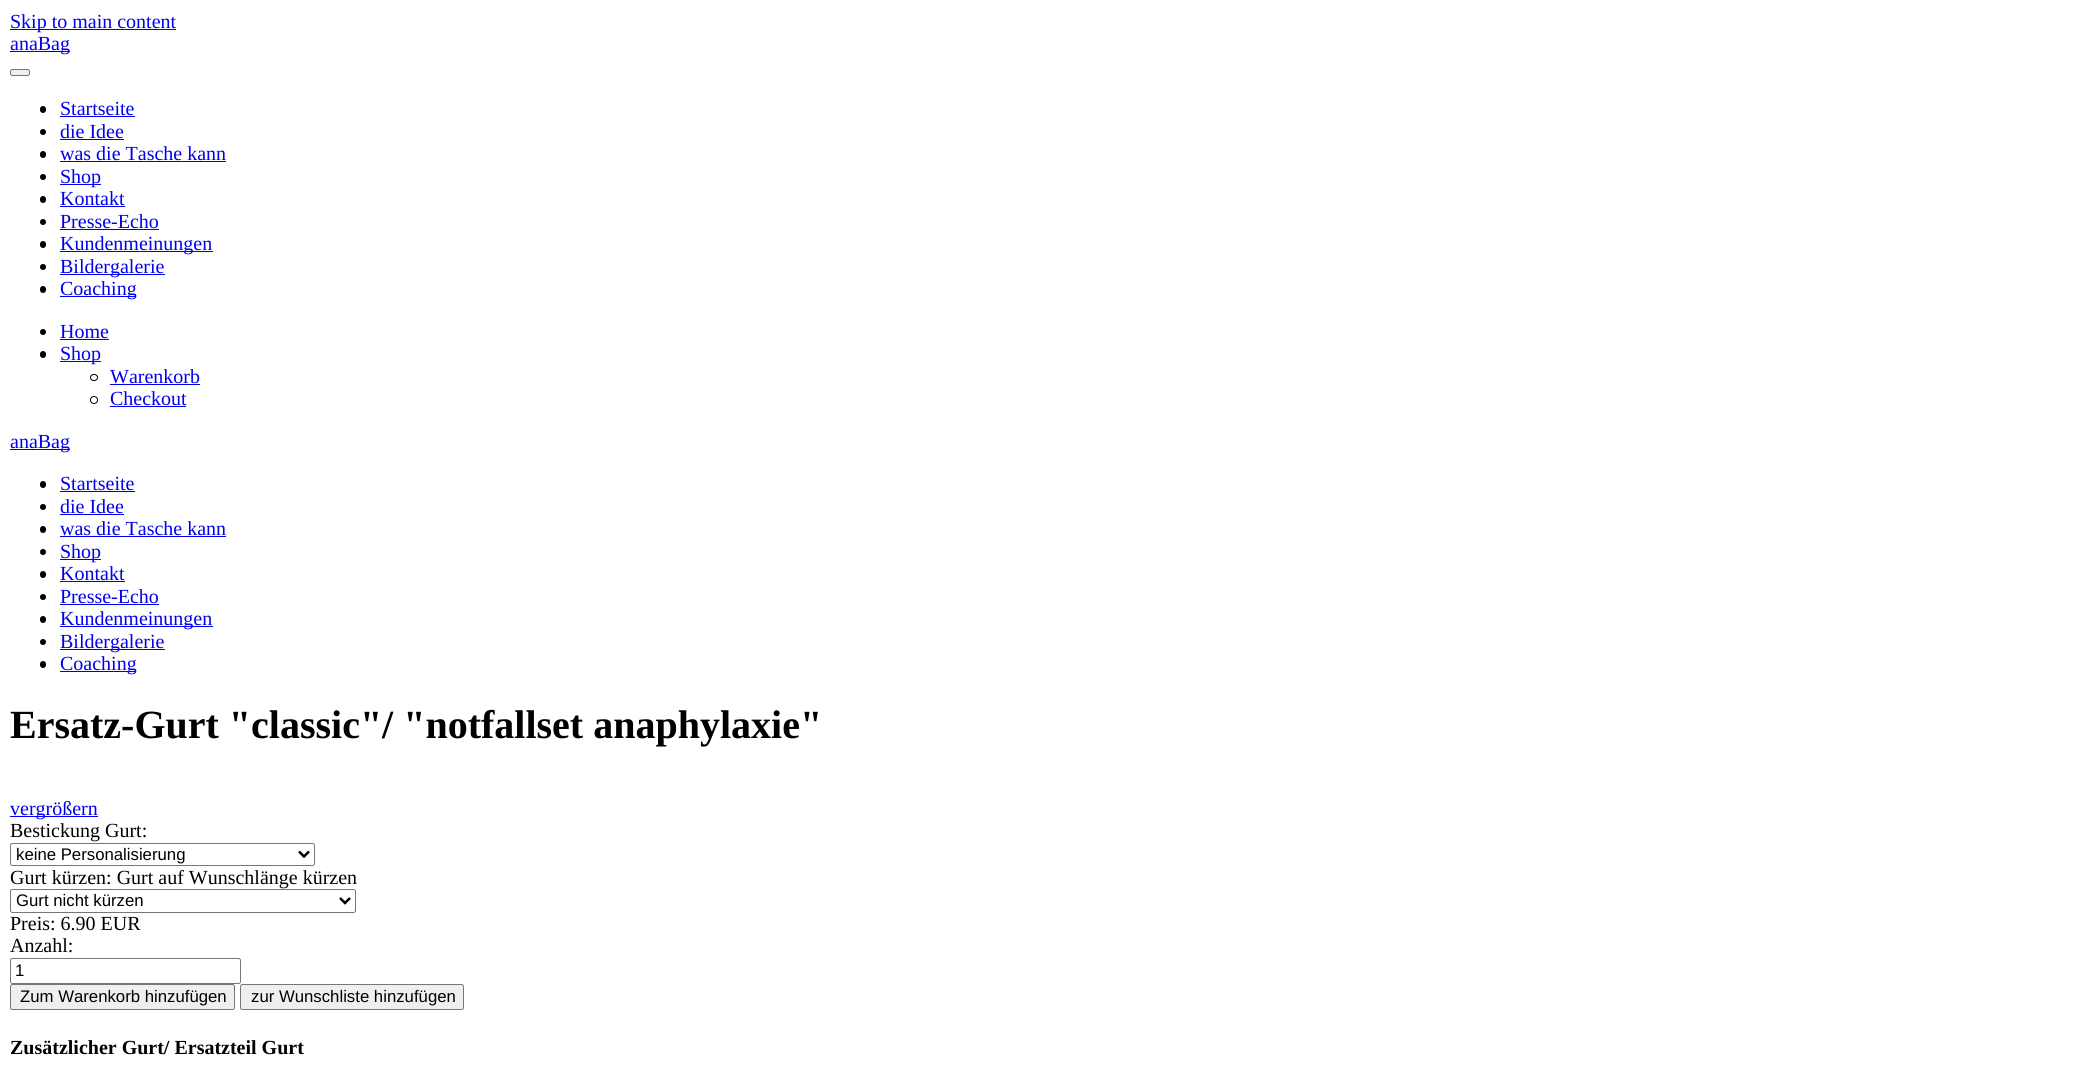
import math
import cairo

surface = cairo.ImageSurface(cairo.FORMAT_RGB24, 2095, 1081)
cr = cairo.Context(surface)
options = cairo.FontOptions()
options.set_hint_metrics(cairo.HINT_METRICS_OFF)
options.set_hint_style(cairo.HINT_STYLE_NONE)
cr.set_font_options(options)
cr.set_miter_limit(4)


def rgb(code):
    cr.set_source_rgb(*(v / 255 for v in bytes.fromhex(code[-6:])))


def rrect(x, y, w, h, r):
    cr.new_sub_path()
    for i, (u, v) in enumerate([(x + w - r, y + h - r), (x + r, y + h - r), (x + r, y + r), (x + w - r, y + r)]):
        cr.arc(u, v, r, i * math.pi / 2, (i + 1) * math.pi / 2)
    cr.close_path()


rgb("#ffffff")
cr.paint()
rgb("#0000ee")
cr.rectangle(10, 29, 166, 1)
cr.fill()
cr.rectangle(10, 51, 60, 1)
cr.fill()
rgb("#efefef")
rrect(10.5, 69.5, 19, 6, 2)
cr.fill_preserve()
rgb("#767676")
cr.set_line_width(1)
cr.stroke()
rgb("#000000")
rrect(40, 106, 6, 7, 3)
cr.fill()
rgb("#0000ee")
cr.rectangle(60, 116, 75, 1)
cr.fill()
rgb("#000000")
cr.arc(43, 132, 3, 0, 2 * math.pi)
cr.fill()
rgb("#0000ee")
cr.rectangle(60, 139, 64, 1)
cr.fill()
rgb("#000000")
rrect(40, 151, 6, 7, 3)
cr.fill()
rgb("#0000ee")
cr.rectangle(60, 161, 166, 1)
cr.fill()
rgb("#000000")
cr.arc(43, 177, 3, 0, 2 * math.pi)
cr.fill()
rgb("#0000ee")
cr.rectangle(60, 184, 41, 1)
cr.fill()
rgb("#000000")
rrect(40, 196, 6, 7, 3)
cr.fill()
rgb("#0000ee")
cr.rectangle(60, 206, 65, 1)
cr.fill()
rgb("#000000")
cr.arc(43, 222, 3, 0, 2 * math.pi)
cr.fill()
rgb("#0000ee")
cr.rectangle(60, 229, 99, 1)
cr.fill()
rgb("#000000")
rrect(40, 241, 6, 7, 3)
cr.fill()
rgb("#0000ee")
cr.rectangle(60, 251, 153, 1)
cr.fill()
rgb("#000000")
cr.arc(43, 267, 3, 0, 2 * math.pi)
cr.fill()
rgb("#0000ee")
cr.rectangle(60, 274, 105, 1)
cr.fill()
rgb("#000000")
rrect(40, 286, 6, 7, 3)
cr.fill()
rgb("#0000ee")
cr.rectangle(60, 296, 76, 1)
cr.fill()
rgb("#000000")
cr.arc(43, 332, 3, 0, 2 * math.pi)
cr.fill()
rgb("#0000ee")
cr.rectangle(60, 339, 49, 1)
cr.fill()
rgb("#000000")
rrect(40, 351, 6, 7, 3)
cr.fill()
rgb("#0000ee")
cr.rectangle(60, 361, 41, 1)
cr.fill()
rrect(90.5, 374.5, 7, 6, 3)
rgb("#000000")
cr.stroke()
rgb("#0000ee")
cr.rectangle(110, 384, 90, 1)
cr.fill()
cr.arc(94, 400, 3.5, 0, 2 * math.pi)
rgb("#000000")
cr.stroke()
rgb("#0000ee")
cr.rectangle(110, 406, 76, 1)
cr.fill()
cr.rectangle(10, 449, 60, 1)
cr.fill()
rgb("#000000")
rrect(40, 481, 6, 7, 3)
cr.fill()
rgb("#0000ee")
cr.rectangle(60, 491, 75, 1)
cr.fill()
rgb("#000000")
cr.arc(43, 507, 3, 0, 2 * math.pi)
cr.fill()
rgb("#0000ee")
cr.rectangle(60, 514, 64, 1)
cr.fill()
rgb("#000000")
rrect(40, 526, 6, 7, 3)
cr.fill()
rgb("#0000ee")
cr.rectangle(60, 536, 166, 1)
cr.fill()
rgb("#000000")
cr.arc(43, 552, 3, 0, 2 * math.pi)
cr.fill()
rgb("#0000ee")
cr.rectangle(60, 559, 41, 1)
cr.fill()
rgb("#000000")
rrect(40, 571, 6, 7, 3)
cr.fill()
rgb("#0000ee")
cr.rectangle(60, 581, 65, 1)
cr.fill()
rgb("#000000")
cr.arc(43, 597, 3, 0, 2 * math.pi)
cr.fill()
rgb("#0000ee")
cr.rectangle(60, 604, 99, 1)
cr.fill()
rgb("#000000")
rrect(40, 616, 6, 7, 3)
cr.fill()
rgb("#0000ee")
cr.rectangle(60, 626, 153, 1)
cr.fill()
rgb("#000000")
cr.arc(43, 642, 3, 0, 2 * math.pi)
cr.fill()
rgb("#0000ee")
cr.rectangle(60, 649, 105, 1)
cr.fill()
rgb("#000000")
rrect(40, 661, 6, 7, 3)
cr.fill()
rgb("#0000ee")
cr.rectangle(60, 671, 76, 1)
cr.fill()
cr.rectangle(10, 816, 88, 1)
cr.fill()
rrect(10.5, 843.5, 304, 22, 2)
rgb("#767676")
cr.stroke()
cr.new_path()
cr.move_to(299, 851.5)
cr.line_to(304, 856.5)
cr.line_to(309, 851.5)
rgb("#000000")
cr.set_line_width(2.5)
cr.stroke()
rrect(10.5, 889.5, 345, 23, 2)
rgb("#767676")
cr.set_line_width(1)
cr.stroke()
cr.new_path()
cr.move_to(340, 898)
cr.line_to(345, 903)
cr.line_to(350, 898)
rgb("#000000")
cr.set_line_width(2.5)
cr.stroke()
rrect(10.5, 958.5, 230, 25, 2)
rgb("#767676")
cr.set_line_width(1)
cr.stroke()
rgb("#efefef")
rrect(10.5, 984.5, 224, 25, 2)
cr.fill_preserve()
rgb("#767676")
cr.stroke()
rgb("#efefef")
rrect(240.5, 984.5, 223, 25, 2)
cr.fill_preserve()
rgb("#767676")
cr.stroke()
cr.select_font_face("Liberation Serif")
cr.set_font_size(20)
rgb("#0000ee")
for x, y, s in [
    (10, 28, "Skip to main content"),
    (10, 50, "anaBag"),
    (60, 115, "Startseite"),
    (60, 138, "die Idee"),
    (60, 160, "was die Tasche kann"),
    (60, 183, "Shop"),
    (60, 205, "Kontakt"),
    (60, 228, "Presse-Echo"),
    (60, 250, "Kundenmeinungen"),
    (60, 273, "Bildergalerie"),
    (60, 295, "Coaching"),
    (60, 338, "Home"),
    (60, 360, "Shop"),
    (110, 383, "Warenkorb"),
    (110, 405, "Checkout"),
    (10, 448, "anaBag"),
    (60, 490, "Startseite"),
    (60, 513, "die Idee"),
    (60, 535, "was die Tasche kann"),
    (60, 558, "Shop"),
    (60, 580, "Kontakt"),
    (60, 603, "Presse-Echo"),
    (60, 625, "Kundenmeinungen"),
    (60, 648, "Bildergalerie"),
    (60, 670, "Coaching"),
]:
    cr.move_to(x, y)
    cr.show_text(s)
cr.select_font_face("Liberation Serif", cairo.FONT_SLANT_NORMAL, cairo.FONT_WEIGHT_BOLD)
cr.set_font_size(40)
rgb("#000000")
cr.move_to(10, 738)
cr.show_text("Ersatz-Gurt \"classic\"/ \"notfallset anaphylaxie\"")
cr.select_font_face("Liberation Serif")
cr.set_font_size(20)
rgb("#0000ee")
cr.move_to(10, 815)
cr.show_text("vergrößern")
rgb("#000000")
cr.move_to(10, 837)
cr.show_text("Bestickung Gurt:")
cr.select_font_face("Liberation Sans")
cr.set_font_size(16.75)
cr.move_to(16, 860)
cr.show_text("keine Personalisierung")
cr.select_font_face("Liberation Serif")
cr.set_font_size(20)
cr.move_to(10, 884)
cr.show_text("Gurt kürzen: Gurt auf Wunschlänge kürzen")
cr.select_font_face("Liberation Sans")
cr.set_font_size(16.75)
cr.move_to(16, 906)
cr.show_text("Gurt nicht kürzen")
cr.select_font_face("Liberation Serif")
cr.set_font_size(20)
cr.move_to(10, 930)
cr.show_text("Preis: 6.90 EUR")
cr.move_to(10, 952)
cr.show_text("Anzahl:")
cr.select_font_face("Liberation Sans")
cr.set_font_size(16.75)
for x, y, s in [
    (15, 976, "1"),
    (20, 1002, "Zum Warenkorb hinzufügen"),
    (251, 1002, "zur Wunschliste hinzufügen"),
]:
    cr.move_to(x, y)
    cr.show_text(s)
cr.select_font_face("Liberation Serif", cairo.FONT_SLANT_NORMAL, cairo.FONT_WEIGHT_BOLD)
cr.set_font_size(20)
cr.move_to(10, 1054)
cr.show_text("Zusätzlicher Gurt/ Ersatzteil Gurt")
surface.write_to_png("page.png")
